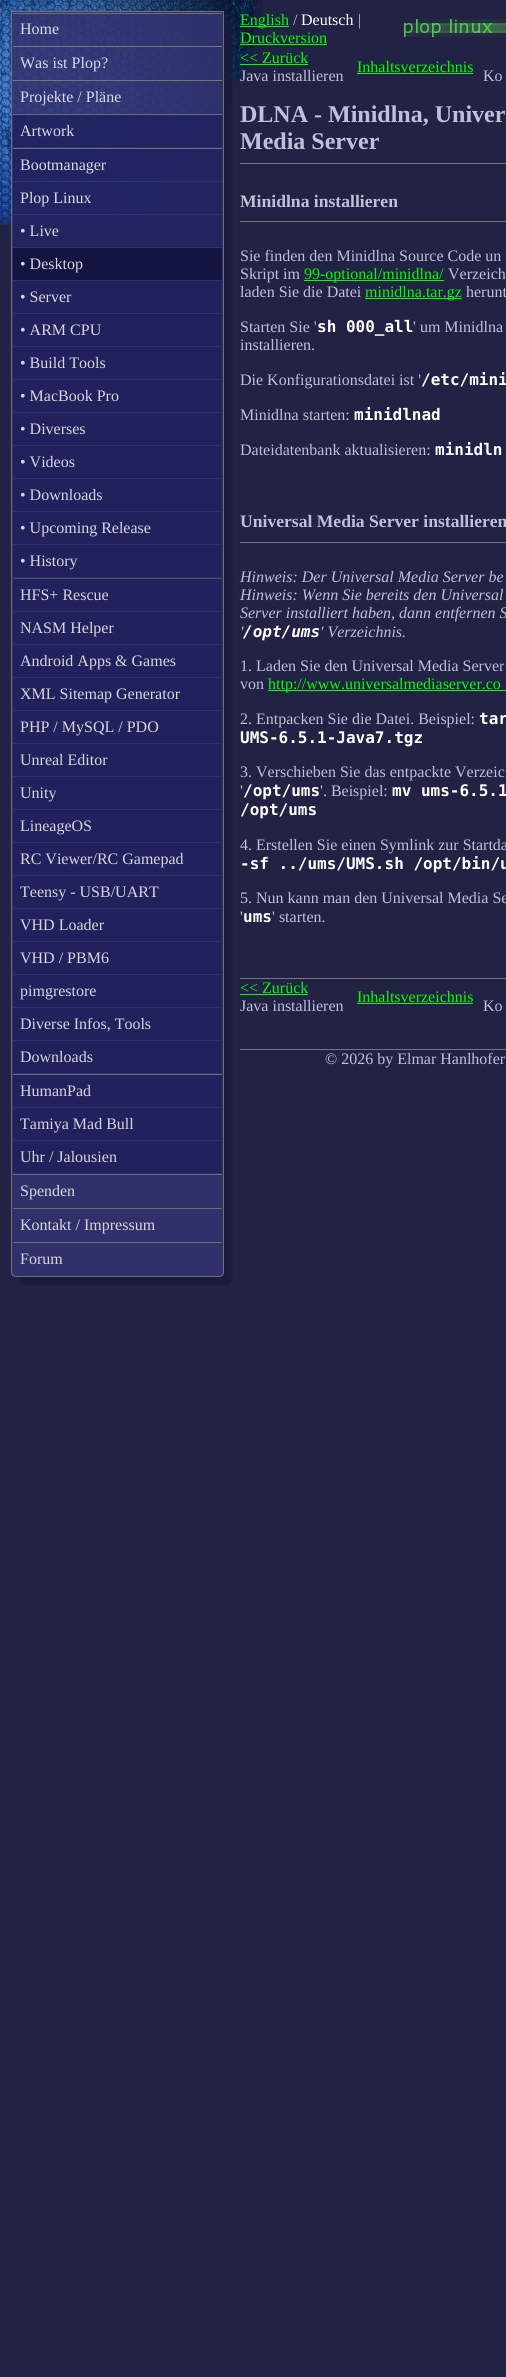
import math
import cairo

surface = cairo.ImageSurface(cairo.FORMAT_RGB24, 506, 2377)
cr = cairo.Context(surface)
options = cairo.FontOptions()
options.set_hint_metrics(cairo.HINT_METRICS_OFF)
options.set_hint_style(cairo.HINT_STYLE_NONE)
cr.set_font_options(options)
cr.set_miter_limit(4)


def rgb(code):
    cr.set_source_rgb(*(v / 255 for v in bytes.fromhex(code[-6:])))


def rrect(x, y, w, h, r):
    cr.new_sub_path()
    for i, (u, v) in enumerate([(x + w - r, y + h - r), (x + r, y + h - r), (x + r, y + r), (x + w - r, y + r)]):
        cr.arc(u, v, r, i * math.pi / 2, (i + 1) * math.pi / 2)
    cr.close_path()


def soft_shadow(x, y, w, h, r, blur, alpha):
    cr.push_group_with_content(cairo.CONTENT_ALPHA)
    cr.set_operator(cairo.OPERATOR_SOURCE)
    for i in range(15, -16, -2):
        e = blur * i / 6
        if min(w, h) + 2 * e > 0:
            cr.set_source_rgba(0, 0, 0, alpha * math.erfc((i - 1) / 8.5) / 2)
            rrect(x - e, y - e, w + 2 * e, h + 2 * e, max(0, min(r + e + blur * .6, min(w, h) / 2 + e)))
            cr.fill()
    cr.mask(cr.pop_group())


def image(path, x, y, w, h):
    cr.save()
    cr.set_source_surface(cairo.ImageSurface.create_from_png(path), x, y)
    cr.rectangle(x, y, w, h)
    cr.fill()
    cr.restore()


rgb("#222244")
cr.paint()
image("img/1.png", 0, 0, 264, 225)
cr.save()
cr.set_fill_rule(cairo.FILL_RULE_EVEN_ODD)
cr.new_path()
cr.move_to(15, 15)
cr.line_to(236, 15)
cr.line_to(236, 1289)
cr.line_to(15, 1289)
cr.close_path()
cr.move_to(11, 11)
cr.line_to(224, 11)
cr.line_to(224, 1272)
cr.curve_to(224, 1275, 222, 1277, 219, 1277)
cr.line_to(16, 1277)
cr.curve_to(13, 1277, 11, 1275, 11, 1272)
cr.close_path()
cr.clip()
rgb("#191939")
soft_shadow(19, 19, 213, 1266, 5, 1, 0.88)
cr.restore()
cr.set_source_rgba(0.196, 0.196, 0.439, 0.88)
cr.new_path()
cr.move_to(11, 11)
cr.line_to(224, 11)
cr.line_to(224, 1272)
cr.curve_to(224, 1275, 222, 1277, 219, 1277)
cr.line_to(16, 1277)
cr.curve_to(13, 1277, 11, 1275, 11, 1272)
cr.close_path()
cr.fill()
cr.new_path()
cr.move_to(11.5, 11.5)
cr.line_to(223.5, 11.5)
cr.line_to(223.5, 1272)
cr.curve_to(223.5, 1274.5, 221.5, 1276.5, 219, 1276.5)
cr.line_to(16, 1276.5)
cr.curve_to(13.5, 1276.5, 11.5, 1274.5, 11.5, 1272)
cr.close_path()
cr.set_source_rgba(0.467, 0.467, 0.467, 0.88)
cr.set_line_width(1)
cr.stroke()
cr.rectangle(13, 13, 209, 1)
cr.fill()
rgb("#767677")
cr.rectangle(13, 46, 209, 1)
cr.rectangle(13, 80, 209, 1)
cr.fill()
cr.set_source_rgba(0.129, 0.129, 0.376, 0.88)
cr.rectangle(13, 115, 209, 32)
cr.fill()
rgb("#6d6d75")
cr.rectangle(13, 114, 209, 1)
cr.fill()
cr.set_source_rgba(0.129, 0.129, 0.376, 0.88)
cr.rectangle(13, 149, 209, 32)
cr.fill()
rgb("#6d6d75")
cr.rectangle(13, 148, 209, 1)
cr.fill()
cr.set_source_rgba(0.129, 0.129, 0.376, 0.88)
cr.rectangle(13, 182, 209, 32)
cr.fill()
cr.rectangle(13, 215, 209, 32)
cr.fill()
rgb("#141440")
cr.rectangle(13, 248, 209, 32)
cr.fill()
rgb("#21215d")
cr.rectangle(13, 281, 209, 32)
cr.rectangle(13, 314, 209, 32)
cr.rectangle(13, 347, 209, 32)
cr.rectangle(13, 380, 209, 32)
cr.rectangle(13, 413, 209, 32)
cr.rectangle(13, 446, 209, 32)
cr.rectangle(13, 479, 209, 32)
cr.rectangle(13, 512, 209, 32)
cr.rectangle(13, 545, 209, 32)
cr.rectangle(13, 579, 209, 32)
cr.fill()
rgb("#4f4f53")
cr.rectangle(13, 578, 209, 1)
cr.fill()
rgb("#21215d")
cr.rectangle(13, 612, 209, 32)
cr.rectangle(13, 645, 209, 32)
cr.rectangle(13, 678, 209, 32)
cr.rectangle(13, 711, 209, 32)
cr.rectangle(13, 744, 209, 32)
cr.rectangle(13, 777, 209, 32)
cr.rectangle(13, 810, 209, 32)
cr.rectangle(13, 843, 209, 32)
cr.rectangle(13, 876, 209, 32)
cr.rectangle(13, 909, 209, 32)
cr.rectangle(13, 942, 209, 32)
cr.rectangle(13, 975, 209, 32)
cr.rectangle(13, 1008, 209, 32)
cr.rectangle(13, 1041, 209, 32)
cr.rectangle(13, 1075, 209, 32)
cr.fill()
rgb("#6d6d71")
cr.rectangle(13, 1074, 209, 1)
cr.fill()
rgb("#21215d")
cr.rectangle(13, 1108, 209, 32)
cr.rectangle(13, 1141, 209, 32)
cr.fill()
rgb("#6d6d71")
cr.rectangle(13, 1174, 209, 1)
cr.rectangle(13, 1208, 209, 1)
cr.rectangle(13, 1242, 209, 1)
cr.fill()
rgb("#00ff00")
cr.rectangle(240, 26, 49, 1)
cr.rectangle(240, 44, 87, 1)
cr.fill()
image("img/2.png", 404, 19, 102, 18)
for x, y, w, h, color in [
    (240, 64, 68, 1, "#00ff00"),
    (357, 73, 116, 1, "#00ff00"),
    (240, 163, 266, 1, "#777777"),
    (240, 221, 266, 1, "#777777"),
    (304, 280, 140, 1, "#00ff00"),
    (365, 298, 97, 1, "#00ff00"),
    (240, 542, 266, 1, "#777777"),
    (268, 690, 238, 1, "#00ff00"),
    (240, 978, 266, 1, "#777777"),
    (240, 994, 68, 1, "#00ff00"),
    (357, 1003, 116, 1, "#00ff00"),
    (240, 1049, 266, 1, "#777777"),
]:
    rgb(color)
    cr.rectangle(x, y, w, h)
    cr.fill()
cr.select_font_face("Liberation Serif")
cr.set_font_size(16)
rgb("#d9dae1")
for x, y, s in [
    (20, 34, "Home"),
    (20, 68, "Was ist Plop?"),
    (20, 102, "Projekte / Pläne"),
    (20, 136, "Artwork"),
    (20, 170, "Bootmanager"),
    (20, 203, "Plop Linux"),
]:
    cr.move_to(x, y)
    cr.show_text(s)
rgb("#d7d7db")
for x, y, s in [
    (20, 236, "• Live"),
    (20, 269, "• Desktop"),
    (20, 302, "• Server"),
    (20, 335, "• ARM CPU"),
    (20, 368, "• Build Tools"),
    (20, 401, "• MacBook Pro"),
    (20, 434, "• Diverses"),
    (20, 467, "• Videos"),
    (20, 500, "• Downloads"),
    (20, 533, "• Upcoming Release"),
    (20, 566, "• History"),
    (20, 600, "HFS+ Rescue"),
    (20, 633, "NASM Helper"),
    (20, 666, "Android Apps & Games"),
    (20, 699, "XML Sitemap Generator"),
    (20, 732, "PHP / MySQL / PDO"),
    (20, 765, "Unreal Editor"),
    (20, 798, "Unity"),
    (20, 831, "LineageOS"),
    (20, 864, "RC Viewer/RC Gamepad"),
    (20, 897, "Teensy - USB/UART"),
    (20, 930, "VHD Loader"),
    (20, 963, "VHD / PBM6"),
    (20, 996, "pimgrestore"),
    (20, 1029, "Diverse Infos, Tools"),
    (20, 1062, "Downloads"),
    (20, 1096, "HumanPad"),
    (20, 1129, "Tamiya Mad Bull"),
    (20, 1162, "Uhr / Jalousien"),
    (20, 1196, "Spenden"),
    (20, 1230, "Kontakt / Impressum"),
    (20, 1264, "Forum"),
]:
    cr.move_to(x, y)
    cr.show_text(s)
rgb("#00ff00")
cr.move_to(240, 25)
cr.show_text("English")
rgb("#c0c0d8")
cr.move_to(293, 25)
cr.show_text("/")
rgb("#ffffff")
cr.move_to(301, 25)
cr.show_text("Deutsch")
rgb("#c0c0d8")
cr.move_to(358, 25)
cr.show_text("|")
rgb("#00ff00")
cr.move_to(240, 43)
cr.show_text("Druckversion")
cr.move_to(240, 63)
cr.show_text("<< Zurück")
rgb("#c0c0d8")
cr.move_to(240, 81)
cr.show_text("Java installieren")
rgb("#00ff00")
cr.move_to(357, 72)
cr.show_text("Inhaltsverzeichnis")
rgb("#c0c0d8")
cr.move_to(483, 81)
cr.show_text("Ko")
cr.select_font_face("Liberation Serif", cairo.FONT_SLANT_NORMAL, cairo.FONT_WEIGHT_BOLD)
cr.set_font_size(24)
cr.move_to(240, 122)
cr.show_text("DLNA - Minidlna, Univer")
cr.move_to(240, 149)
cr.show_text("Media Server")
cr.set_font_size(17.6)
cr.move_to(240, 207)
cr.show_text("Minidlna installieren")
cr.select_font_face("Liberation Serif")
cr.set_font_size(16)
cr.move_to(240, 261)
cr.show_text("Sie finden den Minidlna Source Code un")
cr.move_to(240, 279)
cr.show_text("Skript im")
rgb("#00ff00")
cr.move_to(304, 279)
cr.show_text("99-optional/minidlna/")
rgb("#c0c0d8")
cr.move_to(448, 279)
cr.show_text("Verzeich")
cr.move_to(240, 297)
cr.show_text("laden Sie die Datei")
rgb("#00ff00")
cr.move_to(365, 297)
cr.show_text("minidlna.tar.gz")
rgb("#c0c0d8")
cr.move_to(466, 297)
cr.show_text("herunt")
cr.move_to(240, 332)
cr.show_text("Starten Sie '")
cr.select_font_face("DejaVu Sans Mono", cairo.FONT_SLANT_NORMAL, cairo.FONT_WEIGHT_BOLD)
rgb("#ffffff")
cr.move_to(317, 332)
cr.show_text("sh 000_all")
cr.select_font_face("Liberation Serif")
rgb("#c0c0d8")
for x, y, s in [
    (413, 332, "' um Minidlna"),
    (240, 350, "installieren."),
    (240, 385, "Die Konfigurationsdatei ist '"),
]:
    cr.move_to(x, y)
    cr.show_text(s)
cr.select_font_face("DejaVu Sans Mono", cairo.FONT_SLANT_NORMAL, cairo.FONT_WEIGHT_BOLD)
rgb("#ffffff")
cr.move_to(421, 385)
cr.show_text("/etc/mini")
cr.select_font_face("Liberation Serif")
rgb("#c0c0d8")
cr.move_to(240, 420)
cr.show_text("Minidlna starten:")
cr.select_font_face("DejaVu Sans Mono", cairo.FONT_SLANT_NORMAL, cairo.FONT_WEIGHT_BOLD)
rgb("#ffffff")
cr.move_to(354, 420)
cr.show_text("minidlnad")
cr.select_font_face("Liberation Serif")
rgb("#c0c0d8")
cr.move_to(240, 455)
cr.show_text("Dateidatenbank aktualisieren:")
cr.select_font_face("DejaVu Sans Mono", cairo.FONT_SLANT_NORMAL, cairo.FONT_WEIGHT_BOLD)
rgb("#ffffff")
cr.move_to(435, 455)
cr.show_text("minidln")
cr.select_font_face("Liberation Serif", cairo.FONT_SLANT_NORMAL, cairo.FONT_WEIGHT_BOLD)
cr.set_font_size(17.6)
rgb("#c0c0d8")
cr.move_to(240, 527)
cr.show_text("Universal Media Server installieren")
cr.select_font_face("Liberation Serif", cairo.FONT_SLANT_ITALIC)
cr.set_font_size(16)
for x, y, s in [
    (240, 582, "Hinweis: Der Universal Media Server be"),
    (240, 600, "Hinweis: Wenn Sie bereits den Universal"),
    (240, 618, "Server installiert haben, dann entfernen S"),
    (240, 637, "'"),
]:
    cr.move_to(x, y)
    cr.show_text(s)
cr.select_font_face("DejaVu Sans Mono", cairo.FONT_SLANT_ITALIC, cairo.FONT_WEIGHT_BOLD)
rgb("#ffffff")
cr.move_to(243, 637)
cr.show_text("/opt/ums")
cr.select_font_face("Liberation Serif", cairo.FONT_SLANT_ITALIC)
rgb("#c0c0d8")
cr.move_to(320, 637)
cr.show_text("' Verzeichnis.")
cr.select_font_face("Liberation Serif")
cr.move_to(240, 671)
cr.show_text("1. Laden Sie den Universal Media Server")
cr.move_to(240, 689)
cr.show_text("von")
rgb("#00ff00")
cr.move_to(268, 689)
cr.show_text("http://www.universalmediaserver.co")
rgb("#c0c0d8")
cr.move_to(240, 724)
cr.show_text("2. Entpacken Sie die Datei. Beispiel:")
cr.select_font_face("DejaVu Sans Mono", cairo.FONT_SLANT_NORMAL, cairo.FONT_WEIGHT_BOLD)
rgb("#ffffff")
cr.move_to(479, 724)
cr.show_text("tar")
cr.move_to(240, 743)
cr.show_text("UMS-6.5.1-Java7.tgz")
cr.select_font_face("Liberation Serif")
rgb("#c0c0d8")
cr.move_to(240, 777)
cr.show_text("3. Verschieben Sie das entpackte Verzeic")
cr.move_to(240, 796)
cr.show_text("'")
cr.select_font_face("DejaVu Sans Mono", cairo.FONT_SLANT_NORMAL, cairo.FONT_WEIGHT_BOLD)
rgb("#ffffff")
cr.move_to(243, 796)
cr.show_text("/opt/ums")
cr.select_font_face("Liberation Serif")
rgb("#c0c0d8")
cr.move_to(320, 796)
cr.show_text("'. Beispiel:")
cr.select_font_face("DejaVu Sans Mono", cairo.FONT_SLANT_NORMAL, cairo.FONT_WEIGHT_BOLD)
rgb("#ffffff")
cr.move_to(392, 796)
cr.show_text("mv ums-6.5.1")
cr.move_to(240, 815)
cr.show_text("/opt/ums")
cr.select_font_face("Liberation Serif")
rgb("#c0c0d8")
cr.move_to(240, 850)
cr.show_text("4. Erstellen Sie einen Symlink zur Startda")
cr.select_font_face("DejaVu Sans Mono", cairo.FONT_SLANT_NORMAL, cairo.FONT_WEIGHT_BOLD)
rgb("#ffffff")
cr.move_to(240, 869)
cr.show_text("-sf ../ums/UMS.sh /opt/bin/u")
cr.select_font_face("Liberation Serif")
rgb("#c0c0d8")
cr.move_to(240, 903)
cr.show_text("5. Nun kann man den Universal Media Se")
cr.move_to(240, 922)
cr.show_text("'")
cr.select_font_face("DejaVu Sans Mono", cairo.FONT_SLANT_NORMAL, cairo.FONT_WEIGHT_BOLD)
rgb("#ffffff")
cr.move_to(243, 922)
cr.show_text("ums")
cr.select_font_face("Liberation Serif")
rgb("#c0c0d8")
cr.move_to(272, 922)
cr.show_text("' starten.")
rgb("#00ff00")
cr.move_to(240, 993)
cr.show_text("<< Zurück")
rgb("#c0c0d8")
cr.move_to(240, 1011)
cr.show_text("Java installieren")
rgb("#00ff00")
cr.move_to(357, 1002)
cr.show_text("Inhaltsverzeichnis")
rgb("#c0c0d8")
cr.move_to(483, 1011)
cr.show_text("Ko")
cr.move_to(325, 1064)
cr.show_text("© 2026 by Elmar Hanlhofer")
surface.write_to_png("page.png")
